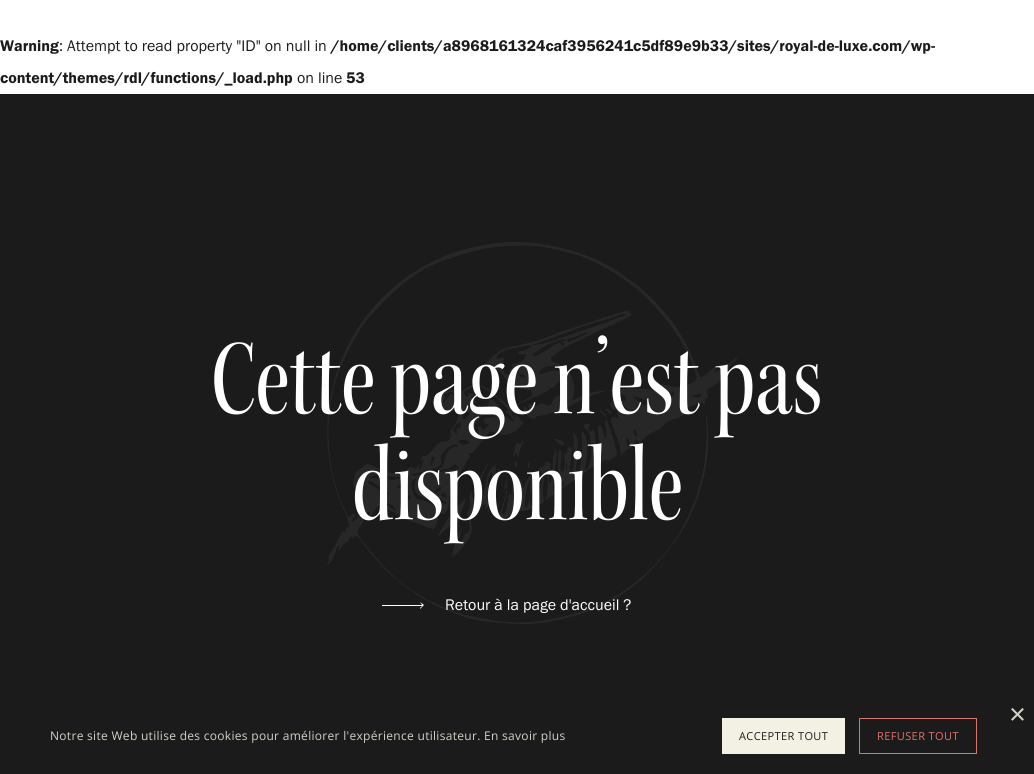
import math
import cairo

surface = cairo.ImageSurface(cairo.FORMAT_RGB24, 1034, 774)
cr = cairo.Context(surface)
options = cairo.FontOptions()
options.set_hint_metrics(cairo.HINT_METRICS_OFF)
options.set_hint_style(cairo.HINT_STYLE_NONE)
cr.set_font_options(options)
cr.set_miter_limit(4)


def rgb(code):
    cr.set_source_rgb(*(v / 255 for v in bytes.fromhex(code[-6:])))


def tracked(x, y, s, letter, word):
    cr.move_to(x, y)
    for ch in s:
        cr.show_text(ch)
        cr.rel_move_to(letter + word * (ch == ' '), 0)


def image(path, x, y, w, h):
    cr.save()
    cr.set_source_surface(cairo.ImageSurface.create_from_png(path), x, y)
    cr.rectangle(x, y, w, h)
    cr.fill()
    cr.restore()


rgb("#ffffff")
cr.paint()
rgb("#1b1b1b")
cr.rectangle(0, 94, 1034, 680)
cr.fill()
image("img/1.png", 327, 242, 410, 382)
rgb("#ffffff")
cr.new_path()
cr.move_to(420, 602)
cr.line_to(422, 605)
cr.line_to(382, 605)
cr.line_to(382, 606)
cr.line_to(422, 606)
cr.line_to(420, 608)
cr.line_to(420, 609)
cr.line_to(424, 605)
cr.close_path()
cr.fill()
rgb("#f2f1e4")
cr.rectangle(722, 718, 123, 36)
cr.fill()
cr.rectangle(859.5, 718.5, 117, 35)
rgb("#de736a")
cr.set_line_width(1)
cr.stroke()
cr.select_font_face("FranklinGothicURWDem")
cr.set_font_size(16)
rgb("#1b1b1b")
cr.move_to(0, 51)
cr.show_text("Warning")
cr.select_font_face("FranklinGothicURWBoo")
cr.move_to(59, 51)
cr.show_text(": Attempt to read property \"ID\" on null in")
cr.select_font_face("FranklinGothicURWDem")
cr.move_to(331, 51)
cr.show_text("/home/clients/a8968161324caf3956241c5df89e9b33/sites/royal-de-luxe.com/wp-")
cr.move_to(0, 83)
cr.show_text("content/themes/rdl/functions/_load.php")
cr.select_font_face("FranklinGothicURWBoo")
cr.move_to(297, 83)
cr.show_text("on line")
cr.select_font_face("FranklinGothicURWDem")
cr.move_to(346, 83)
cr.show_text("53")
cr.select_font_face("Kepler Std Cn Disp")
cr.set_font_size(112)
rgb("#ffffff")
cr.move_to(211, 413)
cr.show_text("Cette page n’est pas")
cr.move_to(352, 519)
cr.show_text("disponible")
cr.select_font_face("FranklinGothicURWBoo")
cr.set_font_size(16)
cr.move_to(445, 610)
cr.show_text("Retour à la page d'accueil ?")
cr.select_font_face("Liberation Sans")
cr.set_font_size(29)
rgb("#d2d1c6")
cr.move_to(1009, 724)
cr.show_text("×")
cr.select_font_face("Open Sans")
cr.set_font_size(12)
tracked(50, 740, "Notre site Web utilise des cookies pour améliorer l'expérience utilisateur. En savoir plus", 0.3, 0)
cr.set_font_size(11)
rgb("#1b1b1b")
tracked(739, 740, "ACCEPTER TOUT", 0.4, 0)
rgb("#de736a")
tracked(877, 740, "REFUSER TOUT", 0.4, 0)
surface.write_to_png("page.png")
